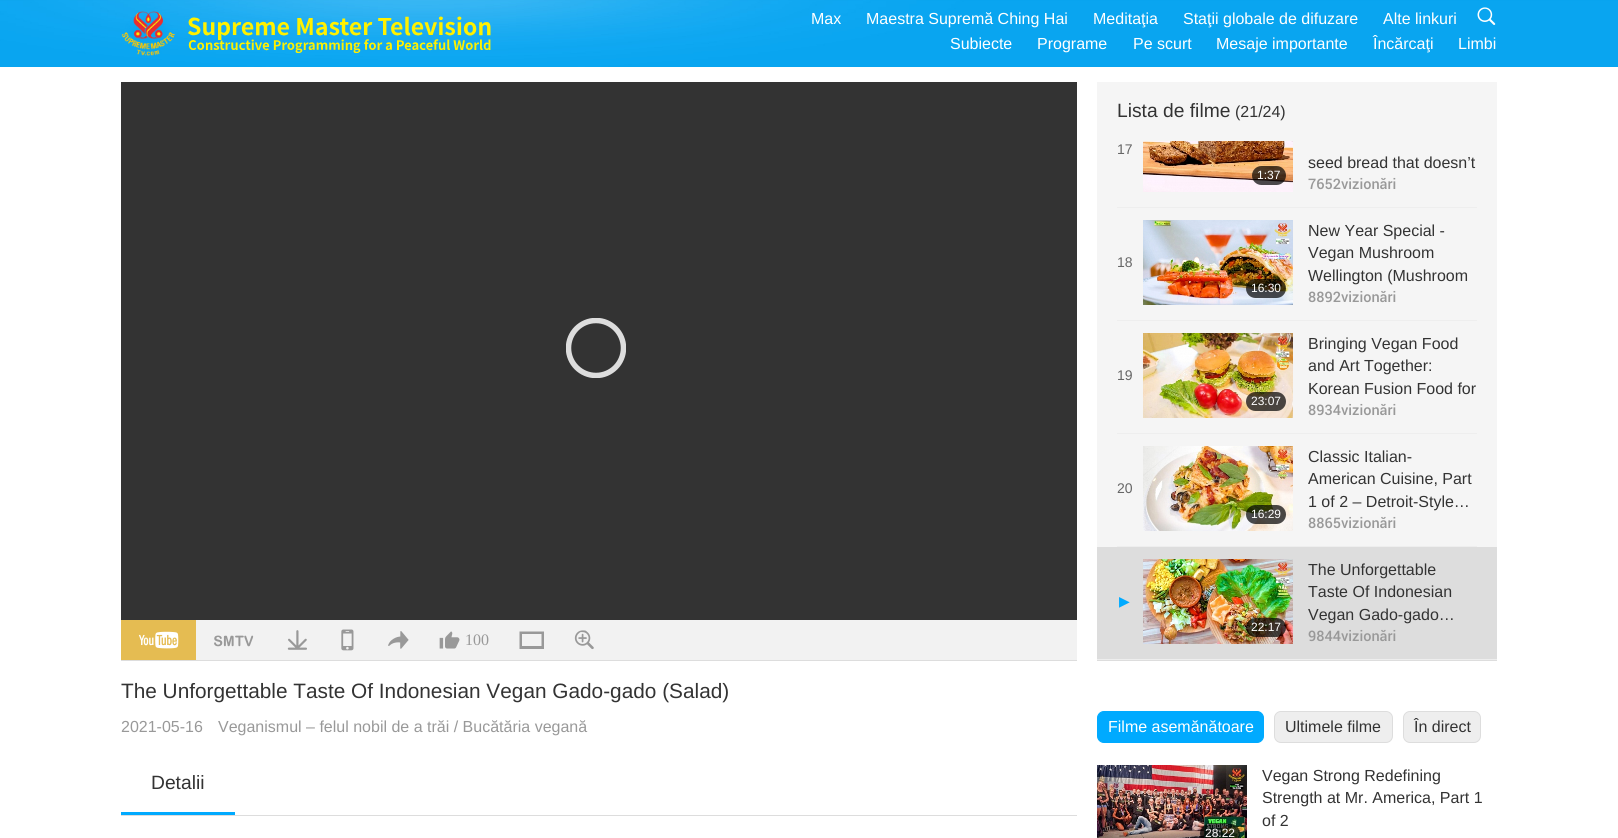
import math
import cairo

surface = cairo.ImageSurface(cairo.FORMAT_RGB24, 1618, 838)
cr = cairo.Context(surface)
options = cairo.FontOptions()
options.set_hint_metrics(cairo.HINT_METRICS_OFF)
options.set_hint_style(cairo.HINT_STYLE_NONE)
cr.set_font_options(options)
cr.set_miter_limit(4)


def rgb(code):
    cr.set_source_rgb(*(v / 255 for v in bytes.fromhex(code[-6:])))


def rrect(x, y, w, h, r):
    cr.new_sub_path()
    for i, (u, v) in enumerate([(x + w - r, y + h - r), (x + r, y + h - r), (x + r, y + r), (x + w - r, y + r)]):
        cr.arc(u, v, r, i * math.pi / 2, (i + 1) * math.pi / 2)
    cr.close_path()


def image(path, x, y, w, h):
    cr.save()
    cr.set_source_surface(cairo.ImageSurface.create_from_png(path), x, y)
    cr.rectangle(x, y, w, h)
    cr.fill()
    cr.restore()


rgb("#ffffff")
cr.paint()
image("img/1.png", 0, 0, 1618, 67)
image("img/2.png", 121, 11, 54, 45)
image("img/3.png", 188, 16, 303, 37)
image("img/4.png", 1477, 7, 19, 18)
rgb("#333333")
cr.rectangle(121, 82, 956, 538)
cr.fill()
cr.save()
cr.rectangle(566, 318, 60, 60)
cr.clip()
cr.arc(596, 348, 27.5, 0, 2 * math.pi)
rgb("#dddddd")
cr.set_line_width(5.5)
cr.stroke()
cr.restore()
for x, y, w, h, color in [
    (196, 620, 881, 40, "#f2f2f2"),
    (121, 660, 956, 1, "#dddddd"),
    (121, 620, 75, 40, "#e5bc52"),
]:
    rgb(color)
    cr.rectangle(x, y, w, h)
    cr.fill()
image("img/5.png", 138, 631, 41, 18)
image("img/6.png", 214, 635, 40, 12)
image("img/7.png", 287, 630, 20, 20)
image("img/8.png", 341, 629, 13, 22)
image("img/9.png", 388, 631, 21, 18)
image("img/10.png", 439, 631, 21, 18)
rgb("#999999")
cr.new_path()
cr.move_to(544, 649)
cr.line_to(519.5, 649)
cr.line_to(519.5, 631.5)
cr.line_to(544, 631.5)
cr.close_path()
cr.move_to(522, 646)
cr.line_to(541.5, 646)
cr.line_to(541.5, 634)
cr.line_to(522, 634)
cr.close_path()
cr.fill()
image("img/11.png", 574, 630, 20, 20)
for x, y, w, h, color in [
    (121, 815, 956, 1, "#dddddd"),
    (121, 812, 114, 3, "#00aaff"),
    (1097, 82, 400, 465, "#f5f5f5"),
    (1097, 660, 400, 1, "#dddddd"),
    (1117, 207, 360, 1, "#eeeeee"),
]:
    rgb(color)
    cr.rectangle(x, y, w, h)
    cr.fill()
image("img/12.png", 1143, 141, 150, 51)
cr.set_source_rgba(0, 0, 0, 0.7)
rrect(1252, 166, 34, 19, 9.5)
cr.fill()
rgb("#eeeeee")
cr.rectangle(1117, 320, 360, 1)
cr.fill()
image("img/13.png", 1143, 220, 150, 85)
cr.set_source_rgba(0, 0, 0, 0.7)
rrect(1246, 279, 40, 19, 9.5)
cr.fill()
rgb("#eeeeee")
cr.rectangle(1117, 433, 360, 1)
cr.fill()
image("img/14.png", 1143, 333, 150, 85)
cr.set_source_rgba(0, 0, 0, 0.7)
rrect(1246, 392, 40, 19, 9.5)
cr.fill()
rgb("#eeeeee")
cr.rectangle(1117, 546, 360, 1)
cr.fill()
image("img/15.png", 1143, 446, 150, 85)
cr.set_source_rgba(0, 0, 0, 0.7)
rrect(1246, 505, 40, 19, 9.5)
cr.fill()
rgb("#dddddd")
cr.rectangle(1097, 547, 400, 112)
cr.fill()
rgb("#eeeeee")
cr.rectangle(1097, 659, 400, 1)
cr.fill()
image("img/16.png", 1143, 559, 150, 85)
cr.set_source_rgba(0, 0, 0, 0.7)
rrect(1246, 618, 40, 19, 9.5)
cr.fill()
rgb("#00aaff")
rrect(1097.5, 711.5, 166, 31, 6.5)
cr.fill_preserve()
cr.set_line_width(1)
cr.stroke()
rgb("#eeeeee")
rrect(1274.5, 711.5, 118, 31, 6.5)
cr.fill_preserve()
rgb("#dddddd")
cr.stroke()
rgb("#eeeeee")
rrect(1403.5, 711.5, 77, 31, 6.5)
cr.fill_preserve()
rgb("#dddddd")
cr.stroke()
image("img/17.png", 1097, 765, 150, 73)
cr.set_source_rgba(0, 0, 0, 0.7)
rrect(1200, 824, 40, 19, 9.5)
cr.fill()
cr.select_font_face("Liberation Sans")
cr.set_font_size(16)
rgb("#ffffff")
for x, y, s in [
    (811, 24, "Max"),
    (866, 24, "Maestra Supremă Ching Hai"),
    (1093, 24, "Meditaţia"),
    (1183, 24, "Staţii globale de difuzare"),
    (1383, 24, "Alte linkuri"),
    (950, 49, "Subiecte"),
    (1037, 49, "Programe"),
    (1133, 49, "Pe scurt"),
    (1216, 49, "Mesaje importante"),
    (1373, 49, "Încărcaţi"),
    (1458, 49, "Limbi"),
]:
    cr.move_to(x, y)
    cr.show_text(s)
cr.select_font_face("Liberation Serif")
rgb("#999999")
cr.move_to(465, 645)
cr.show_text("100")
cr.select_font_face("Liberation Sans")
cr.set_font_size(20.8)
rgb("#333333")
cr.move_to(121, 698)
cr.show_text("The Unforgettable Taste Of Indonesian Vegan Gado-gado (Salad)")
cr.set_font_size(16)
rgb("#999999")
cr.move_to(121, 732)
cr.show_text("2021-05-16")
cr.move_to(218, 732)
cr.show_text("Veganismul – felul nobil de a trăi / Bucătăria vegană")
cr.set_font_size(19.25)
rgb("#333333")
cr.move_to(151, 789)
cr.show_text("Detalii")
cr.move_to(1117, 117)
cr.show_text("Lista de filme")
cr.set_font_size(16)
cr.move_to(1235, 117)
cr.show_text("(21/24)")
cr.set_font_size(14)
rgb("#666666")
cr.move_to(1117, 154)
cr.show_text("17")
cr.set_font_size(12)
rgb("#ffffff")
cr.move_to(1257, 179)
cr.show_text("1:37")
cr.set_font_size(16)
rgb("#333333")
cr.move_to(1308, 168)
cr.show_text("seed bread that doesn’t")
cr.select_font_face("Roboto Medium")
cr.set_font_size(14.5)
rgb("#999999")
cr.move_to(1308, 189)
cr.show_text("7652vizionări")
cr.select_font_face("Liberation Sans")
cr.set_font_size(14)
rgb("#666666")
cr.move_to(1117, 267)
cr.show_text("18")
cr.set_font_size(12)
rgb("#ffffff")
cr.move_to(1251, 292)
cr.show_text("16:30")
cr.set_font_size(16)
rgb("#333333")
for x, y, s in [
    (1308, 236, "New Year Special -"),
    (1308, 258, "Vegan Mushroom"),
    (1308, 281, "Wellington (Mushroom"),
]:
    cr.move_to(x, y)
    cr.show_text(s)
cr.select_font_face("Roboto Medium")
cr.set_font_size(14.5)
rgb("#999999")
cr.move_to(1308, 302)
cr.show_text("8892vizionări")
cr.select_font_face("Liberation Sans")
cr.set_font_size(14)
rgb("#666666")
cr.move_to(1117, 380)
cr.show_text("19")
cr.set_font_size(12)
rgb("#ffffff")
cr.move_to(1251, 405)
cr.show_text("23:07")
cr.set_font_size(16)
rgb("#333333")
for x, y, s in [
    (1308, 349, "Bringing Vegan Food"),
    (1308, 371, "and Art Together:"),
    (1308, 394, "Korean Fusion Food for"),
]:
    cr.move_to(x, y)
    cr.show_text(s)
cr.select_font_face("Roboto Medium")
cr.set_font_size(14.5)
rgb("#999999")
cr.move_to(1308, 415)
cr.show_text("8934vizionări")
cr.select_font_face("Liberation Sans")
cr.set_font_size(14)
rgb("#666666")
cr.move_to(1117, 493)
cr.show_text("20")
cr.set_font_size(12)
rgb("#ffffff")
cr.move_to(1251, 518)
cr.show_text("16:29")
cr.set_font_size(16)
rgb("#333333")
for x, y, s in [
    (1308, 462, "Classic Italian-"),
    (1308, 484, "American Cuisine, Part"),
    (1308, 507, "1 of 2 – Detroit-Style…"),
]:
    cr.move_to(x, y)
    cr.show_text(s)
cr.select_font_face("Roboto Medium")
cr.set_font_size(14.5)
rgb("#999999")
cr.move_to(1308, 528)
cr.show_text("8865vizionări")
cr.select_font_face("DejaVu Sans")
cr.set_font_size(14)
rgb("#00aaff")
cr.move_to(1119, 606)
cr.show_text("▶")
cr.select_font_face("Liberation Sans")
cr.set_font_size(12)
rgb("#ffffff")
cr.move_to(1251, 631)
cr.show_text("22:17")
cr.set_font_size(16)
rgb("#333333")
for x, y, s in [
    (1308, 575, "The Unforgettable"),
    (1308, 597, "Taste Of Indonesian"),
    (1308, 620, "Vegan Gado-gado…"),
]:
    cr.move_to(x, y)
    cr.show_text(s)
cr.select_font_face("Roboto Medium")
cr.set_font_size(14.5)
rgb("#999999")
cr.move_to(1308, 641)
cr.show_text("9844vizionări")
cr.select_font_face("Liberation Sans")
cr.set_font_size(16)
rgb("#ffffff")
cr.move_to(1108, 732)
cr.show_text("Filme asemănătoare")
rgb("#333333")
for x, y, s in [
    (1285, 732, "Ultimele filme"),
    (1414, 732, "În direct"),
    (1262, 781, "Vegan Strong Redefining"),
    (1262, 803, "Strength at Mr. America, Part 1"),
    (1262, 826, "of 2"),
]:
    cr.move_to(x, y)
    cr.show_text(s)
cr.set_font_size(12)
rgb("#ffffff")
cr.move_to(1205, 837)
cr.show_text("28:22")
surface.write_to_png("page.png")
